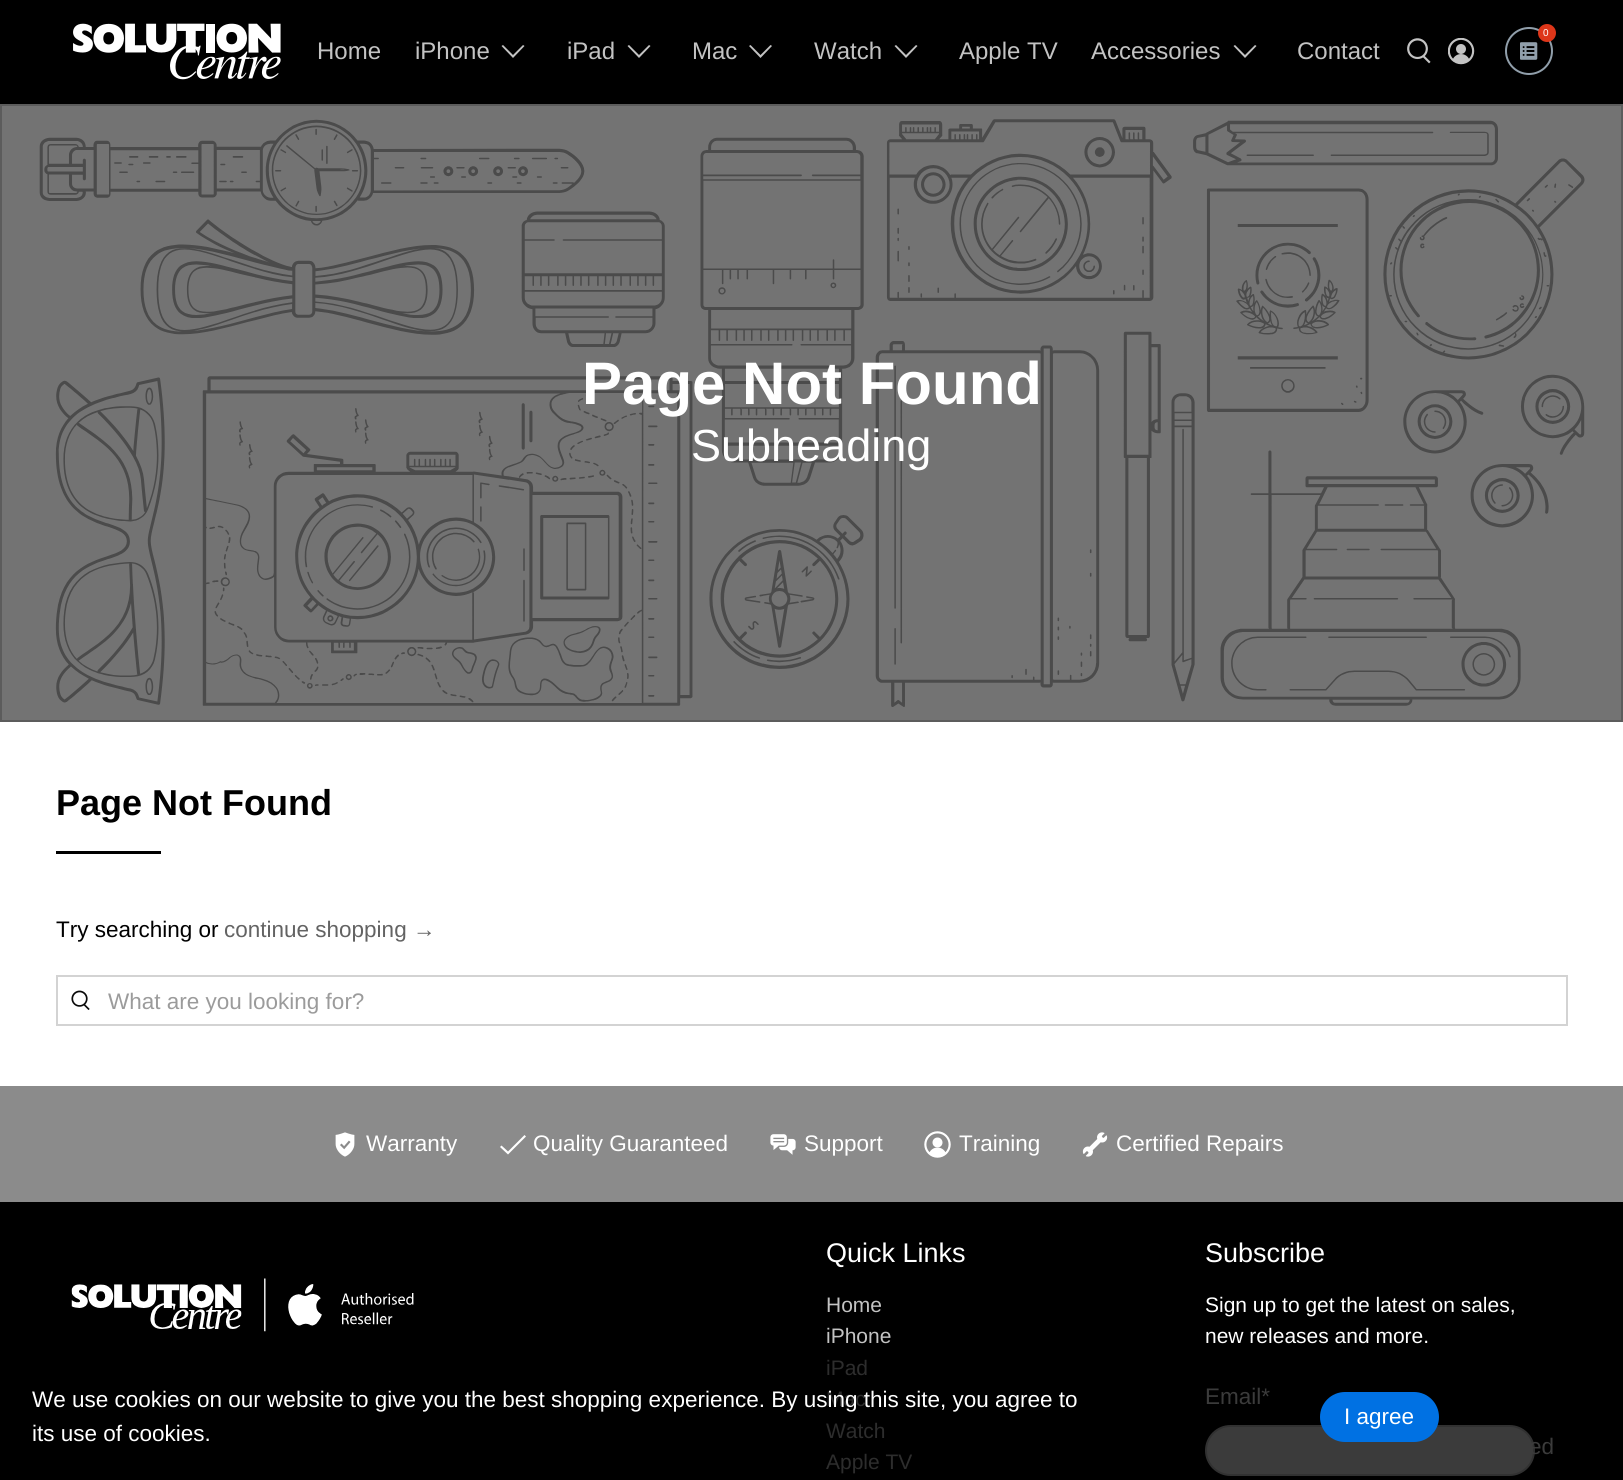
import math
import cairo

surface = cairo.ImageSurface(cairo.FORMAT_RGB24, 1623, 1480)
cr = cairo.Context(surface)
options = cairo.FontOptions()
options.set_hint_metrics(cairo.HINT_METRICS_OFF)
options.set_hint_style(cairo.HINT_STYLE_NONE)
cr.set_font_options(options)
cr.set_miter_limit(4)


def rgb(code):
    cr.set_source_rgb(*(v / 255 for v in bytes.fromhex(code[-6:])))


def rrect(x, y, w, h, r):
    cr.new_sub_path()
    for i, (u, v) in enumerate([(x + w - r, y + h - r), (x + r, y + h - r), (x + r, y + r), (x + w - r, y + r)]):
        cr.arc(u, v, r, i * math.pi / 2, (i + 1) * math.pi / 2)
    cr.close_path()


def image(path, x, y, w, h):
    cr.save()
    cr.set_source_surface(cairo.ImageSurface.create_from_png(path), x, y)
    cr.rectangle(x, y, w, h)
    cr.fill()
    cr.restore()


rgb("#ffffff")
cr.paint()
rgb("#000000")
cr.rectangle(0, 0, 1623, 104)
cr.fill()
image("img/1.png", 73, 23, 208, 57)
cr.arc(1529, 51, 23, 0, 2 * math.pi)
rgb("#919fab")
cr.stroke()
rgb("#de3619")
cr.arc(1547, 33, 9, 0, 2 * math.pi)
cr.fill()
image("img/2.png", 1520, 42, 18, 18)
image("img/3.png", 1407, 38, 24, 26)
image("img/4.png", 1448, 38, 27, 27)
rgb("#c3c3c3")
cr.new_path()
cr.move_to(513, 58)
cr.line_to(501.5, 46)
cr.line_to(503, 45)
cr.line_to(513, 55)
cr.line_to(523, 45)
cr.line_to(524.5, 46)
cr.close_path()
cr.fill()
cr.new_path()
cr.move_to(639, 58)
cr.line_to(627.5, 46)
cr.line_to(629, 45)
cr.line_to(639, 55)
cr.line_to(649, 45)
cr.line_to(650.5, 46)
cr.close_path()
cr.fill()
cr.new_path()
cr.move_to(760.5, 58)
cr.line_to(749, 46)
cr.line_to(750.5, 45)
cr.line_to(760.5, 55)
cr.line_to(770.5, 45)
cr.line_to(772, 46)
cr.close_path()
cr.fill()
cr.new_path()
cr.move_to(906, 58)
cr.line_to(894.5, 46)
cr.line_to(896, 45)
cr.line_to(906, 55)
cr.line_to(916, 45)
cr.line_to(917.5, 46)
cr.close_path()
cr.fill()
cr.new_path()
cr.move_to(1245, 58)
cr.line_to(1233.5, 46)
cr.line_to(1235, 45)
cr.line_to(1245, 55)
cr.line_to(1255, 45)
cr.line_to(1256.5, 46)
cr.close_path()
cr.fill()
rgb("#737373")
cr.rectangle(1, 105, 1621, 616)
cr.fill_preserve()
rgb("#5c5c5c")
cr.stroke()
image("img/5.png", 39, 119, 1546, 588)
rgb("#000000")
cr.rectangle(56, 851, 105, 3)
cr.fill()
cr.rectangle(57, 976, 1510, 49)
rgb("#d3d3d3")
cr.stroke()
image("img/6.png", 71, 990, 19, 20)
rgb("#8b8b8b")
cr.rectangle(0, 1086, 1623, 116)
cr.fill()
image("img/7.png", 335, 1132, 20, 25)
rgb("#ffffff")
cr.new_path()
cr.move_to(524.5, 1135)
cr.line_to(508, 1151.5)
cr.line_to(501.5, 1145.5)
cr.line_to(500, 1147)
cr.line_to(508, 1154.5)
cr.line_to(526, 1136.5)
cr.close_path()
cr.fill()
image("img/8.png", 770, 1134, 26, 21)
image("img/9.png", 924, 1131, 27, 27)
image("img/10.png", 1082, 1132, 26, 25)
rgb("#000000")
cr.rectangle(0, 1202, 1623, 278)
cr.fill()
image("img/11.png", 71, 1278, 343, 54)
rgb("#3b3b3b")
rrect(1206, 1426, 328, 49, 24.5)
cr.fill_preserve()
rgb("#313131")
cr.stroke()
cr.select_font_face("Liberation Sans")
cr.set_font_size(10)
rgb("#ffffff")
cr.move_to(1543, 36)
cr.show_text("0")
cr.set_font_size(24)
rgb("#c3c3c3")
for x, y, s in [
    (317, 59, "Home"),
    (415, 59, "iPhone"),
    (567, 59, "iPad"),
    (692, 59, "Mac"),
    (814, 59, "Watch"),
    (959, 59, "Apple TV"),
    (1091, 59, "Accessories"),
    (1297, 59, "Contact"),
]:
    cr.move_to(x, y)
    cr.show_text(s)
cr.select_font_face("Liberation Sans", cairo.FONT_SLANT_NORMAL, cairo.FONT_WEIGHT_BOLD)
cr.set_font_size(60)
rgb("#ffffff")
cr.move_to(582, 404)
cr.show_text("Page Not Found")
cr.select_font_face("Liberation Sans")
cr.set_font_size(45)
cr.move_to(691, 461)
cr.show_text("Subheading")
cr.select_font_face("Liberation Sans", cairo.FONT_SLANT_NORMAL, cairo.FONT_WEIGHT_BOLD)
cr.set_font_size(36)
rgb("#000000")
cr.move_to(56, 815)
cr.show_text("Page Not Found")
cr.select_font_face("Liberation Sans")
cr.set_font_size(22.5)
cr.move_to(56, 937)
cr.show_text("Try searching or")
rgb("#636363")
cr.move_to(224, 937)
cr.show_text("continue shopping →")
rgb("#9b9b9b")
cr.move_to(108, 1009)
cr.show_text("What are you looking for?")
rgb("#ffffff")
for x, y, s in [
    (366, 1151, "Warranty"),
    (533, 1151, "Quality Guaranteed"),
    (804, 1151, "Support"),
    (959, 1151, "Training"),
    (1116, 1151, "Certified Repairs"),
]:
    cr.move_to(x, y)
    cr.show_text(s)
cr.set_font_size(27)
cr.move_to(826, 1262)
cr.show_text("Quick Links")
cr.set_font_size(21)
rgb("#c3c3c3")
cr.move_to(826, 1312)
cr.show_text("Home")
cr.move_to(826, 1343)
cr.show_text("iPhone")
rgb("#2d2d2d")
for x, y, s in [
    (826, 1375, "iPad"),
    (826, 1406, "Mac"),
    (826, 1438, "Watch"),
    (826, 1469, "Apple TV"),
]:
    cr.move_to(x, y)
    cr.show_text(s)
cr.set_font_size(27)
rgb("#ffffff")
cr.move_to(1205, 1262)
cr.show_text("Subscribe")
cr.set_font_size(21)
cr.move_to(1205, 1312)
cr.show_text("Sign up to get the latest on sales,")
cr.move_to(1205, 1343)
cr.show_text("new releases and more.")
cr.set_font_size(22.5)
rgb("#3b3b3b")
cr.move_to(1205, 1404)
cr.show_text("Email*")
rgb("#ffffff")
cr.move_to(32, 1407)
cr.show_text("We use cookies on our website to give you the best shopping experience. By using this site, you agree to")
cr.move_to(32, 1441)
cr.show_text("its use of cookies.")
rgb("#3b3b3b")
cr.move_to(1225, 1454)
cr.show_text("Your quote is successfully added")
rgb("#0071e3")
rrect(1320, 1392, 119, 50, 25)
cr.fill()
rgb("#ffffff")
cr.move_to(1344, 1424)
cr.show_text("I agree")
surface.write_to_png("page.png")
